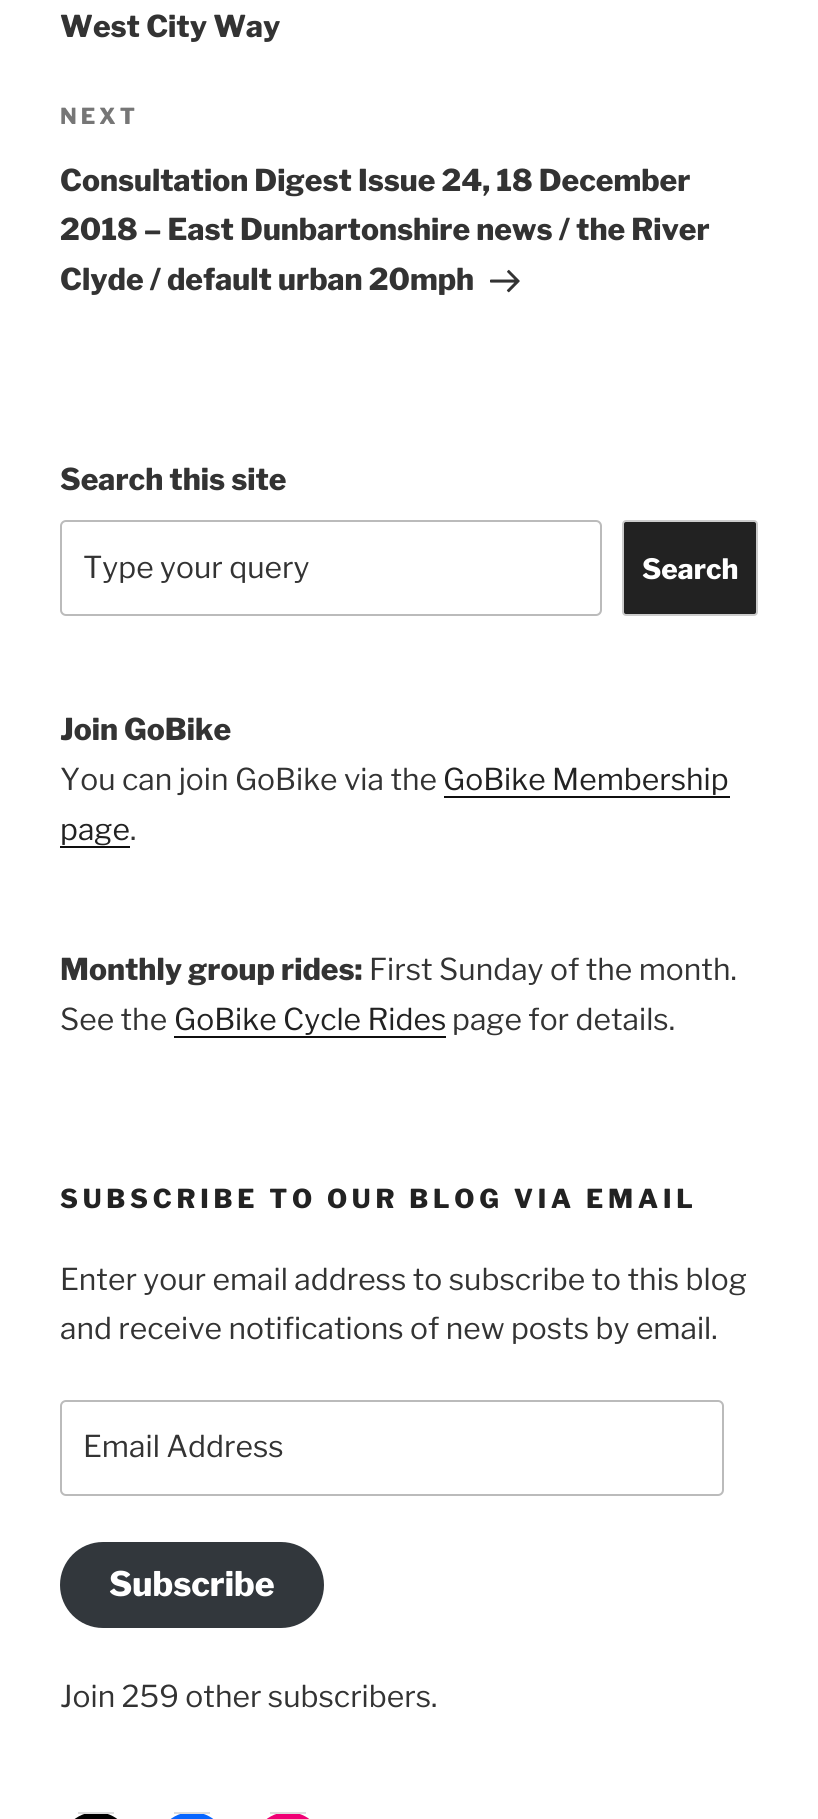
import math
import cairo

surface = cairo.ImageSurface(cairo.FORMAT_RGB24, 818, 1819)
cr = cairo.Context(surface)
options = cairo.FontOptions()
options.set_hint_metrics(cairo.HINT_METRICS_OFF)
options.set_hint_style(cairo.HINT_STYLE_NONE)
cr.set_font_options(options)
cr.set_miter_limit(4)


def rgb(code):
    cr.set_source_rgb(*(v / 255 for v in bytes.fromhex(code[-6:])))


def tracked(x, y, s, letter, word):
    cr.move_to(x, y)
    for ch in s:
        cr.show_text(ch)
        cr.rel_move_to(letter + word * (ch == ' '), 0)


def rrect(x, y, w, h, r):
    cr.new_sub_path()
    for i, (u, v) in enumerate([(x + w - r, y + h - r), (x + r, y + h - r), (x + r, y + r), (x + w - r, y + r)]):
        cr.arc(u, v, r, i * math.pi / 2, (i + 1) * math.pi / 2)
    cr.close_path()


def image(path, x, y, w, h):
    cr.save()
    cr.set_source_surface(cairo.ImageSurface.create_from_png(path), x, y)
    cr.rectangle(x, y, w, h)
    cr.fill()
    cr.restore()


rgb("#ffffff")
cr.paint()
image("img/1.png", 490, 269, 30, 24)
rrect(61, 521, 540, 94, 5)
rgb("#bbbbbb")
cr.stroke()
rgb("#222222")
rrect(623, 521, 134, 94, 3)
cr.fill_preserve()
rgb("#cccccc")
cr.stroke()
for x, y, w, h, color in [
    (444, 796, 286, 2, "#0f0f0f"),
    (60, 846, 70, 2, "#0f0f0f"),
    (174, 1036, 272, 2, "#0f0f0f"),
]:
    rgb(color)
    cr.rectangle(x, y, w, h)
    cr.fill()
rrect(61, 1401, 662, 94, 5)
rgb("#bbbbbb")
cr.stroke()
rgb("#32373c")
rrect(60, 1542, 264, 86, 43)
cr.fill()
rgb("#000000")
rrect(60, 1812, 72, 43, 36)
cr.fill()
rgb("#dddddd")
cr.rectangle(78, 1812, 36, 2)
cr.fill()
rgb("#0866ff")
rrect(156, 1812, 72, 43, 36)
cr.fill()
rgb("#dddddd")
cr.rectangle(174, 1812, 36, 2)
cr.fill()
rgb("#f00075")
rrect(252, 1812, 72, 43, 36)
cr.fill()
rgb("#dddddd")
cr.rectangle(270, 1812, 36, 2)
cr.fill()
cr.select_font_face("Libre Franklin Thin")
cr.set_font_size(30)
rgb("#333333")
cr.move_to(60, 37)
cr.show_text("West City Way")
cr.set_font_size(22)
rgb("#767676")
tracked(60, 124, "NEXT", 4, 0)
cr.set_font_size(30)
rgb("#333333")
for x, y, s in [
    (60, 191, "Consultation Digest Issue 24, 18 December"),
    (60, 240, "2018 – East Dunbartonshire news / the River"),
    (60, 290, "Clyde / default urban 20mph"),
    (60, 490, "Search this site"),
]:
    cr.move_to(x, y)
    cr.show_text(s)
cr.select_font_face("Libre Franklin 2 Thin")
cr.move_to(83, 578)
cr.show_text("Type your query")
cr.select_font_face("Libre Franklin Thin")
cr.set_font_size(28)
rgb("#ffffff")
cr.move_to(642, 579)
cr.show_text("Search")
cr.set_font_size(30)
rgb("#333333")
cr.move_to(60, 740)
cr.show_text("Join GoBike")
cr.select_font_face("Libre Franklin 2 Thin")
cr.move_to(60, 790)
cr.show_text("You can join GoBike via the")
rgb("#222222")
cr.move_to(443, 790)
cr.show_text("GoBike Membership")
cr.move_to(60, 840)
cr.show_text("page")
rgb("#333333")
cr.move_to(130, 840)
cr.show_text(".")
cr.select_font_face("Libre Franklin Thin")
cr.move_to(60, 980)
cr.show_text("Monthly group rides:")
cr.select_font_face("Libre Franklin 2 Thin")
cr.move_to(369, 980)
cr.show_text("First Sunday of the month.")
cr.move_to(60, 1030)
cr.show_text("See the")
rgb("#222222")
cr.move_to(174, 1030)
cr.show_text("GoBike Cycle Rides")
rgb("#333333")
cr.move_to(452, 1030)
cr.show_text("page for details.")
cr.select_font_face("Libre Franklin Thin")
cr.set_font_size(26)
rgb("#222222")
tracked(60, 1208, "SUBSCRIBE TO OUR BLOG VIA EMAIL", 4.75, 0)
cr.select_font_face("Libre Franklin 2 Thin")
cr.set_font_size(30)
rgb("#333333")
for x, y, s in [
    (60, 1290, "Enter your email address to subscribe to this blog"),
    (60, 1339, "and receive notifications of new posts by email."),
    (83, 1457, "Email Address"),
]:
    cr.move_to(x, y)
    cr.show_text(s)
cr.select_font_face("Libre Franklin Thin")
cr.set_font_size(33.75)
rgb("#ffffff")
cr.move_to(109, 1596)
cr.show_text("Subscribe")
cr.select_font_face("Libre Franklin 2 Thin")
cr.set_font_size(30)
rgb("#333333")
cr.move_to(60, 1707)
cr.show_text("Join 259 other subscribers.")
surface.write_to_png("page.png")
